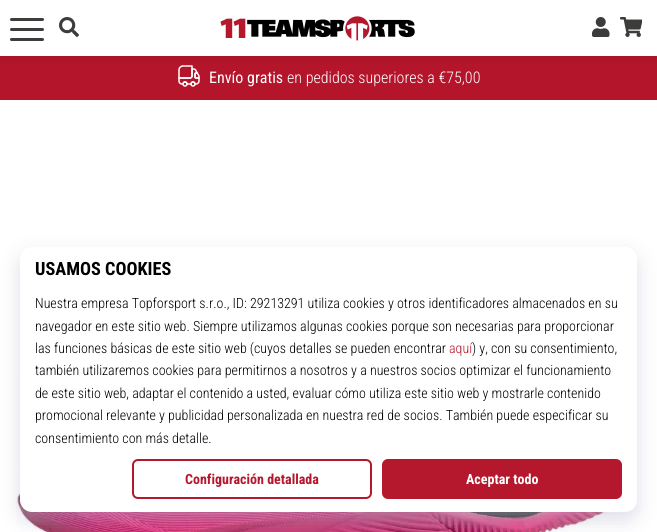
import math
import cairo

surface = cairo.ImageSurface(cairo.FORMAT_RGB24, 657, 532)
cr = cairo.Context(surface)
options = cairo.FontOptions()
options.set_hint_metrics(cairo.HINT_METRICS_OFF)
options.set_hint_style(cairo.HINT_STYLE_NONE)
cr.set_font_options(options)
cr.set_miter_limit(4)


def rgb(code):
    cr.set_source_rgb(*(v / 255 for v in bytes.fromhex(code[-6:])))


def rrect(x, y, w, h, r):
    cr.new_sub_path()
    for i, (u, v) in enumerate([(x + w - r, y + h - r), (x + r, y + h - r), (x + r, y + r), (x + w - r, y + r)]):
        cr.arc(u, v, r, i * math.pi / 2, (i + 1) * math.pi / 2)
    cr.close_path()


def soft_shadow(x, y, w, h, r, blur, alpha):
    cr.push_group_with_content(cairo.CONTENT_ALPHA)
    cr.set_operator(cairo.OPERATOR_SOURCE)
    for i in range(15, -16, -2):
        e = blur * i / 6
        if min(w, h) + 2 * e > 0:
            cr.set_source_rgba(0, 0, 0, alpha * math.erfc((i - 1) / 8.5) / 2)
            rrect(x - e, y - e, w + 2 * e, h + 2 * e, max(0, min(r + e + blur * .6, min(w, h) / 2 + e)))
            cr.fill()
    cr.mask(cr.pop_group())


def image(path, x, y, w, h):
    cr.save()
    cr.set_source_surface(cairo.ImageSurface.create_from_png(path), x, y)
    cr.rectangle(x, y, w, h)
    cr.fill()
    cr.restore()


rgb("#ffffff")
cr.paint()
rgb("#b5152b")
cr.rectangle(0, 56, 657, 44)
cr.fill()
image("img/5.png", 178, 65, 22, 22)
rgb("#000000")
soft_shadow(0, 0, 657, 56, 0, 6, 0.15)
rgb("#ffffff")
cr.rectangle(0, 0, 657, 56)
cr.fill()
rgb("#3c3c3b")
rrect(10, 18, 34, 3, 1.5)
cr.fill()
rrect(10, 28, 34, 3, 1.5)
cr.fill()
rrect(10, 38, 34, 3, 1.5)
cr.fill()
image("img/1.png", 59, 17, 20, 20)
image("img/2.png", 220, 16, 195, 25)
image("img/3.png", 592, 17, 18, 20)
image("img/4.png", 620, 17, 22, 20)
image("img/6.png", 16, 276, 621, 256)
rgb("#bcbed2")
soft_shadow(20, 255, 617, 265, 12, 10, 0.5)
rgb("#ffffff")
rrect(20, 247, 617, 265, 12)
cr.fill()
rrect(133, 460, 238, 38, 5)
rgb("#b5182d")
cr.stroke()
rrect(383, 460, 238, 38, 5)
cr.fill_preserve()
cr.stroke()
cr.select_font_face("Roboto Condensed")
cr.set_font_size(16)
rgb("#ffffff")
cr.move_to(209, 83)
cr.show_text("Envío gratis")
cr.select_font_face("Roboto Condensed Light")
cr.move_to(287, 83)
cr.show_text("en pedidos superiores a €75,00")
cr.select_font_face("Roboto Condensed", cairo.FONT_SLANT_NORMAL, cairo.FONT_WEIGHT_BOLD)
cr.set_font_size(18.25)
rgb("#000000")
cr.move_to(35, 275)
cr.show_text("USAMOS COOKIES")
cr.select_font_face("Roboto Condensed Light")
cr.set_font_size(14)
for x, y, s in [
    (35, 308, "Nuestra empresa Topforsport s.r.o., ID: 29213291 utiliza cookies y otros identificadores almacenados en su"),
    (35, 331, "navegador en este sitio web. Siempre utilizamos algunas cookies porque son necesarias para proporcionar"),
    (35, 353, "las funciones básicas de este sitio web (cuyos detalles se pueden encontrar"),
]:
    cr.move_to(x, y)
    cr.show_text(s)
rgb("#b5182d")
cr.move_to(449, 353)
cr.show_text("aquí")
rgb("#000000")
for x, y, s in [
    (472, 353, ") y, con su consentimiento,"),
    (35, 375, "también utilizaremos cookies para permitirnos a nosotros y a nuestros socios optimizar el funcionamiento"),
    (35, 398, "de este sitio web, adaptar el contenido a usted, evaluar cómo utiliza este sitio web y mostrarle contenido"),
    (35, 420, "promocional relevante y publicidad personalizada en nuestra red de socios. También puede especificar su"),
    (35, 443, "consentimiento con más detalle."),
]:
    cr.move_to(x, y)
    cr.show_text(s)
cr.select_font_face("Roboto Condensed", cairo.FONT_SLANT_NORMAL, cairo.FONT_WEIGHT_BOLD)
rgb("#b5182d")
cr.move_to(185, 484)
cr.show_text("Configuración detallada")
rgb("#ffffff")
cr.move_to(466, 484)
cr.show_text("Aceptar todo")
surface.write_to_png("page.png")
